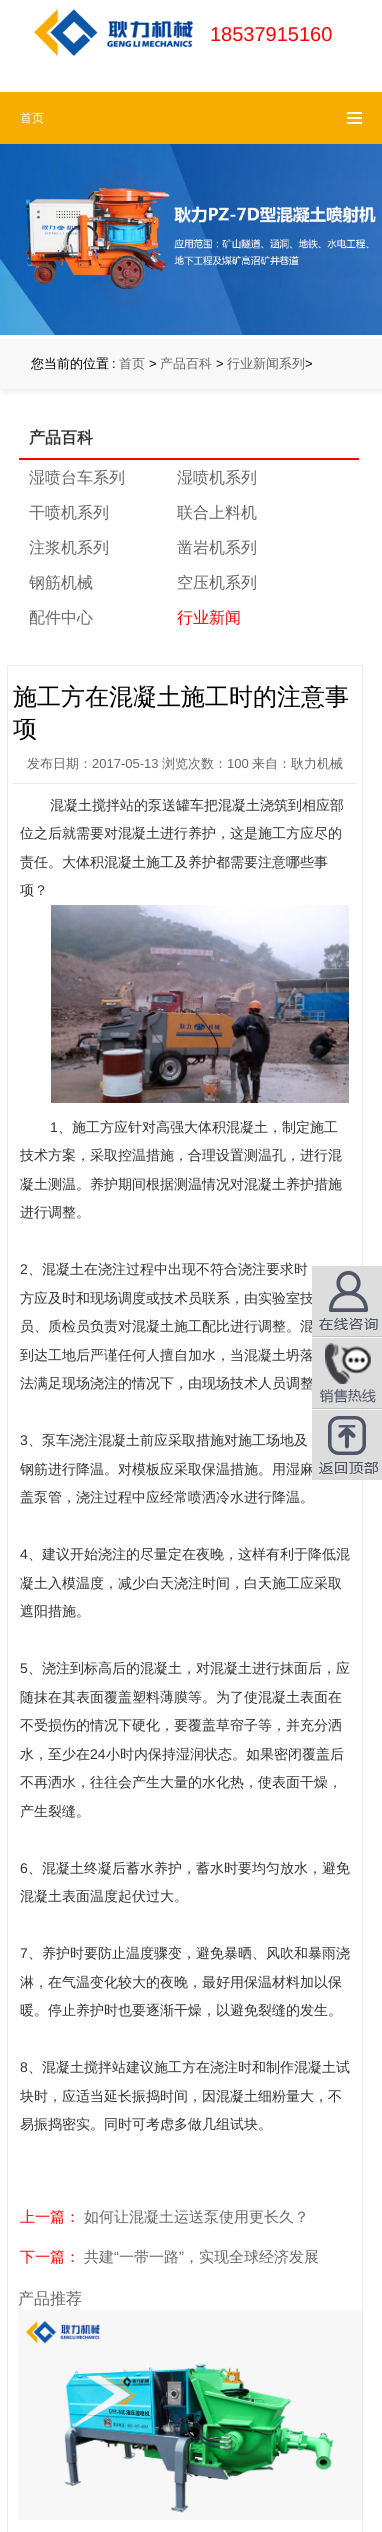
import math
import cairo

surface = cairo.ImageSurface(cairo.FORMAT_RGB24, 382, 2532)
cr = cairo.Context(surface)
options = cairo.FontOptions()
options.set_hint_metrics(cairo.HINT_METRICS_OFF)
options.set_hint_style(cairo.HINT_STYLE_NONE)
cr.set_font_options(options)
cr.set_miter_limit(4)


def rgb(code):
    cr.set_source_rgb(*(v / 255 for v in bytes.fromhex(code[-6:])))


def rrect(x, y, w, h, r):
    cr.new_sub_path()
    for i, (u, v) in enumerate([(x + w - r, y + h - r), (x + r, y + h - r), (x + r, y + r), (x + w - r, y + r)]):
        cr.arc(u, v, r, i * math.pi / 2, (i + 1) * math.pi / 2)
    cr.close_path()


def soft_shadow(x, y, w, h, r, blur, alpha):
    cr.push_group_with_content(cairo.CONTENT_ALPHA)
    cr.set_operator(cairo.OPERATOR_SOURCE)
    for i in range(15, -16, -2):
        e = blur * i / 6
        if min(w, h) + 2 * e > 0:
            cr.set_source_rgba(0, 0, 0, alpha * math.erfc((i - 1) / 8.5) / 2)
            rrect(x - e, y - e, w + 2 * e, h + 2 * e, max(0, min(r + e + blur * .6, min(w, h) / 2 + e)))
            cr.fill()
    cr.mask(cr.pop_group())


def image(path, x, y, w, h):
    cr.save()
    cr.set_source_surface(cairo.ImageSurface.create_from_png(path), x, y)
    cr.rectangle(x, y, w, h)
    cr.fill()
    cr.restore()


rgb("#ffffff")
cr.paint()
image("img/1.png", 34, 9, 159, 47)
for x, y, w, h, color in [
    (0, 92, 382, 52, "#f7ac00"),
    (347, 112, 15, 2, "#ffffff"),
    (347, 117, 15, 2, "#ffffff"),
    (347, 122, 15, 2, "#ffffff"),
]:
    rgb(color)
    cr.rectangle(x, y, w, h)
    cr.fill()
rgb("#eeeeee")
soft_shadow(3, 342, 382, 50, 0, 2.5, 1)
image("img/2.png", 0, 144, 382, 191)
rgb("#f8f8f8")
cr.rectangle(0, 339, 382, 50)
cr.fill()
rgb("#ff0000")
cr.rectangle(19, 458, 340, 2)
cr.fill()
cr.rectangle(7.5, 665.5, 355, 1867)
rgb("#ebebeb")
cr.set_line_width(1)
cr.stroke()
cr.rectangle(13, 783, 344, 1)
cr.fill()
image("img/3.png", 51, 905, 298, 198)
image("img/4.png", 18, 2310, 344, 210)
rgb("#c0c0c0")
cr.rectangle(312, 1336, 70, 1)
cr.fill()
cr.rectangle(312, 1408, 70, 1)
cr.fill()
cr.select_font_face("Liberation Sans")
cr.set_font_size(20)
rgb("#ff0000")
cr.move_to(210, 41)
cr.show_text("18537915160")
cr.select_font_face("WenQuanYi Zen Hei Medium")
cr.set_font_size(12)
rgb("#ffffff")
cr.move_to(20, 122)
cr.show_text("首页")
cr.set_font_size(13)
rgb("#000000")
cr.move_to(31, 368)
cr.show_text("您当前的位置")
cr.select_font_face("Liberation Sans")
cr.move_to(112, 368)
cr.show_text(":")
cr.select_font_face("WenQuanYi Zen Hei Medium")
rgb("#666666")
cr.move_to(119, 368)
cr.show_text("首页")
cr.select_font_face("Liberation Sans")
rgb("#000000")
cr.move_to(149, 368)
cr.show_text(">")
cr.select_font_face("WenQuanYi Zen Hei Medium")
rgb("#666666")
cr.move_to(160, 368)
cr.show_text("产品百科")
cr.select_font_face("Liberation Sans")
rgb("#000000")
cr.move_to(216, 368)
cr.show_text(">")
cr.select_font_face("WenQuanYi Zen Hei Medium")
rgb("#666666")
cr.move_to(227, 368)
cr.show_text("行业新闻系列")
cr.select_font_face("Liberation Sans")
rgb("#000000")
cr.move_to(305, 368)
cr.show_text(">")
cr.select_font_face("WenQuanYi Zen Hei", cairo.FONT_SLANT_NORMAL, cairo.FONT_WEIGHT_BOLD)
cr.set_font_size(16)
rgb("#333333")
cr.move_to(29, 443)
cr.show_text("产品百科")
cr.select_font_face("WenQuanYi Zen Hei Medium")
rgb("#666666")
for x, y, s in [
    (29, 483, "湿喷台车系列"),
    (177, 483, "湿喷机系列"),
    (29, 518, "干喷机系列"),
    (177, 518, "联合上料机"),
    (29, 553, "注浆机系列"),
    (177, 553, "凿岩机系列"),
    (29, 588, "钢筋机械"),
    (177, 588, "空压机系列"),
    (29, 623, "配件中心"),
]:
    cr.move_to(x, y)
    cr.show_text(s)
rgb("#ff0000")
cr.move_to(177, 623)
cr.show_text("行业新闻")
cr.set_font_size(24)
rgb("#000000")
cr.move_to(13, 705)
cr.show_text("施工方在混凝土施工时的注意事")
cr.move_to(13, 737)
cr.show_text("项")
cr.set_font_size(13)
rgb("#666666")
cr.move_to(27, 768)
cr.show_text("发布日期：")
cr.select_font_face("Liberation Sans")
cr.move_to(92, 768)
cr.show_text("2017-05-13")
cr.select_font_face("WenQuanYi Zen Hei Medium")
cr.move_to(162, 768)
cr.show_text("浏览次数：")
cr.select_font_face("Liberation Sans")
cr.move_to(227, 768)
cr.show_text("100")
cr.select_font_face("WenQuanYi Zen Hei Medium")
cr.move_to(252, 768)
cr.show_text("来自：耿力机械")
cr.set_font_size(14)
rgb("#333333")
for x, y, s in [
    (50, 810, "混凝土搅拌站的泵送罐车把混凝土浇筑到相应部"),
    (20, 838, "位之后就需要对混凝土进行养护，这是施工方应尽的"),
    (20, 867, "责任。大体积混凝土施工及养护都需要注意哪些事"),
    (20, 895, "项？"),
]:
    cr.move_to(x, y)
    cr.show_text(s)
cr.select_font_face("Liberation Sans")
cr.move_to(50, 1132)
cr.show_text("1")
cr.select_font_face("WenQuanYi Zen Hei Medium")
for x, y, s in [
    (58, 1132, "、施工方应针对高强大体积混凝土，制定施工"),
    (20, 1160, "技术方案，采取控温措施，合理设置测温孔，进行混"),
    (20, 1189, "凝土测温。养护期间根据测温情况对混凝土养护措施"),
    (20, 1217, "进行调整。"),
]:
    cr.move_to(x, y)
    cr.show_text(s)
cr.select_font_face("Liberation Sans")
cr.move_to(20, 1274)
cr.show_text("2")
cr.select_font_face("WenQuanYi Zen Hei Medium")
for x, y, s in [
    (28, 1274, "、混凝土在浇注过程中出现不符合浇注要求时"),
    (20, 1303, "方应及时和现场调度或技术员联系，由实验室技"),
    (20, 1331, "员、质检员负责对混凝土施工配比进行调整。混"),
    (20, 1360, "到达工地后严谨任何人擅自加水，当混凝土坍落"),
    (20, 1388, "法满足现场浇注的情况下，由现场技术人员调整"),
]:
    cr.move_to(x, y)
    cr.show_text(s)
cr.select_font_face("Liberation Sans")
cr.move_to(20, 1445)
cr.show_text("3")
cr.select_font_face("WenQuanYi Zen Hei Medium")
for x, y, s in [
    (28, 1445, "、泵车浇注混凝土前应采取措施对施工场地及"),
    (20, 1474, "钢筋进行降温。对模板应采取保温措施。用湿麻"),
    (20, 1502, "盖泵管，浇注过程中应经常喷洒冷水进行降温。"),
]:
    cr.move_to(x, y)
    cr.show_text(s)
cr.select_font_face("Liberation Sans")
cr.move_to(20, 1559)
cr.show_text("4")
cr.select_font_face("WenQuanYi Zen Hei Medium")
for x, y, s in [
    (28, 1559, "、建议开始浇注的尽量定在夜晚，这样有利于降低混"),
    (20, 1588, "凝土入模温度，减少白天浇注时间，白天施工应采取"),
    (20, 1616, "遮阳措施。"),
]:
    cr.move_to(x, y)
    cr.show_text(s)
cr.select_font_face("Liberation Sans")
cr.move_to(20, 1673)
cr.show_text("5")
cr.select_font_face("WenQuanYi Zen Hei Medium")
for x, y, s in [
    (28, 1673, "、浇注到标高后的混凝土，对混凝土进行抹面后，应"),
    (20, 1702, "随抹在其表面覆盖塑料薄膜等。为了使混凝土表面在"),
    (20, 1730, "不受损伤的情况下硬化，要覆盖草帘子等，并充分洒"),
    (20, 1759, "水，至少在"),
]:
    cr.move_to(x, y)
    cr.show_text(s)
cr.select_font_face("Liberation Sans")
cr.move_to(90, 1759)
cr.show_text("24")
cr.select_font_face("WenQuanYi Zen Hei Medium")
for x, y, s in [
    (106, 1759, "小时内保持湿润状态。如果密闭覆盖后"),
    (20, 1787, "不再洒水，往往会产生大量的水化热，使表面干燥，"),
    (20, 1816, "产生裂缝。"),
]:
    cr.move_to(x, y)
    cr.show_text(s)
cr.select_font_face("Liberation Sans")
cr.move_to(20, 1873)
cr.show_text("6")
cr.select_font_face("WenQuanYi Zen Hei Medium")
cr.move_to(28, 1873)
cr.show_text("、混凝土终凝后蓄水养护，蓄水时要均匀放水，避免")
cr.move_to(20, 1901)
cr.show_text("混凝土表面温度起伏过大。")
cr.select_font_face("Liberation Sans")
cr.move_to(20, 1958)
cr.show_text("7")
cr.select_font_face("WenQuanYi Zen Hei Medium")
for x, y, s in [
    (28, 1958, "、养护时要防止温度骤变，避免暴晒、风吹和暴雨浇"),
    (20, 1987, "淋，在气温变化较大的夜晚，最好用保温材料加以保"),
    (20, 2015, "暖。停止养护时也要逐渐干燥，以避免裂缝的发生。"),
]:
    cr.move_to(x, y)
    cr.show_text(s)
cr.select_font_face("Liberation Sans")
cr.move_to(20, 2072)
cr.show_text("8")
cr.select_font_face("WenQuanYi Zen Hei Medium")
for x, y, s in [
    (28, 2072, "、混凝土搅拌站建议施工方在浇注时和制作混凝土试"),
    (20, 2101, "块时，应适当延长振捣时间，因混凝土细粉量大，不"),
    (20, 2129, "易振捣密实。同时可考虑多做几组试块。"),
]:
    cr.move_to(x, y)
    cr.show_text(s)
cr.set_font_size(15)
rgb("#ff0000")
cr.move_to(20, 2222)
cr.show_text("上一篇：")
rgb("#666666")
cr.move_to(84, 2222)
cr.show_text("如何让混凝土运送泵使用更长久？")
rgb("#ff0000")
cr.move_to(20, 2262)
cr.show_text("下一篇：")
rgb("#666666")
cr.move_to(84, 2262)
cr.show_text("共建")
cr.select_font_face("Liberation Sans")
cr.move_to(114, 2262)
cr.show_text("“")
cr.select_font_face("WenQuanYi Zen Hei Medium")
cr.move_to(119, 2262)
cr.show_text("一带一路")
cr.select_font_face("Liberation Sans")
cr.move_to(179, 2262)
cr.show_text("”")
cr.select_font_face("WenQuanYi Zen Hei Medium")
cr.move_to(184, 2262)
cr.show_text("，实现全球经济发展")
cr.set_font_size(16)
cr.move_to(18, 2304)
cr.show_text("产品推荐")
rgb("#dddddd")
cr.rectangle(312, 1266, 70, 70)
cr.fill()
image("img/5.png", 319, 1271, 59, 59)
cr.rectangle(312, 1338, 70, 70)
cr.fill()
image("img/6.png", 320, 1343, 56, 60)
cr.rectangle(312, 1410, 70, 70)
cr.fill()
image("img/7.png", 319, 1416, 60, 58)
surface.write_to_png("page.png")
